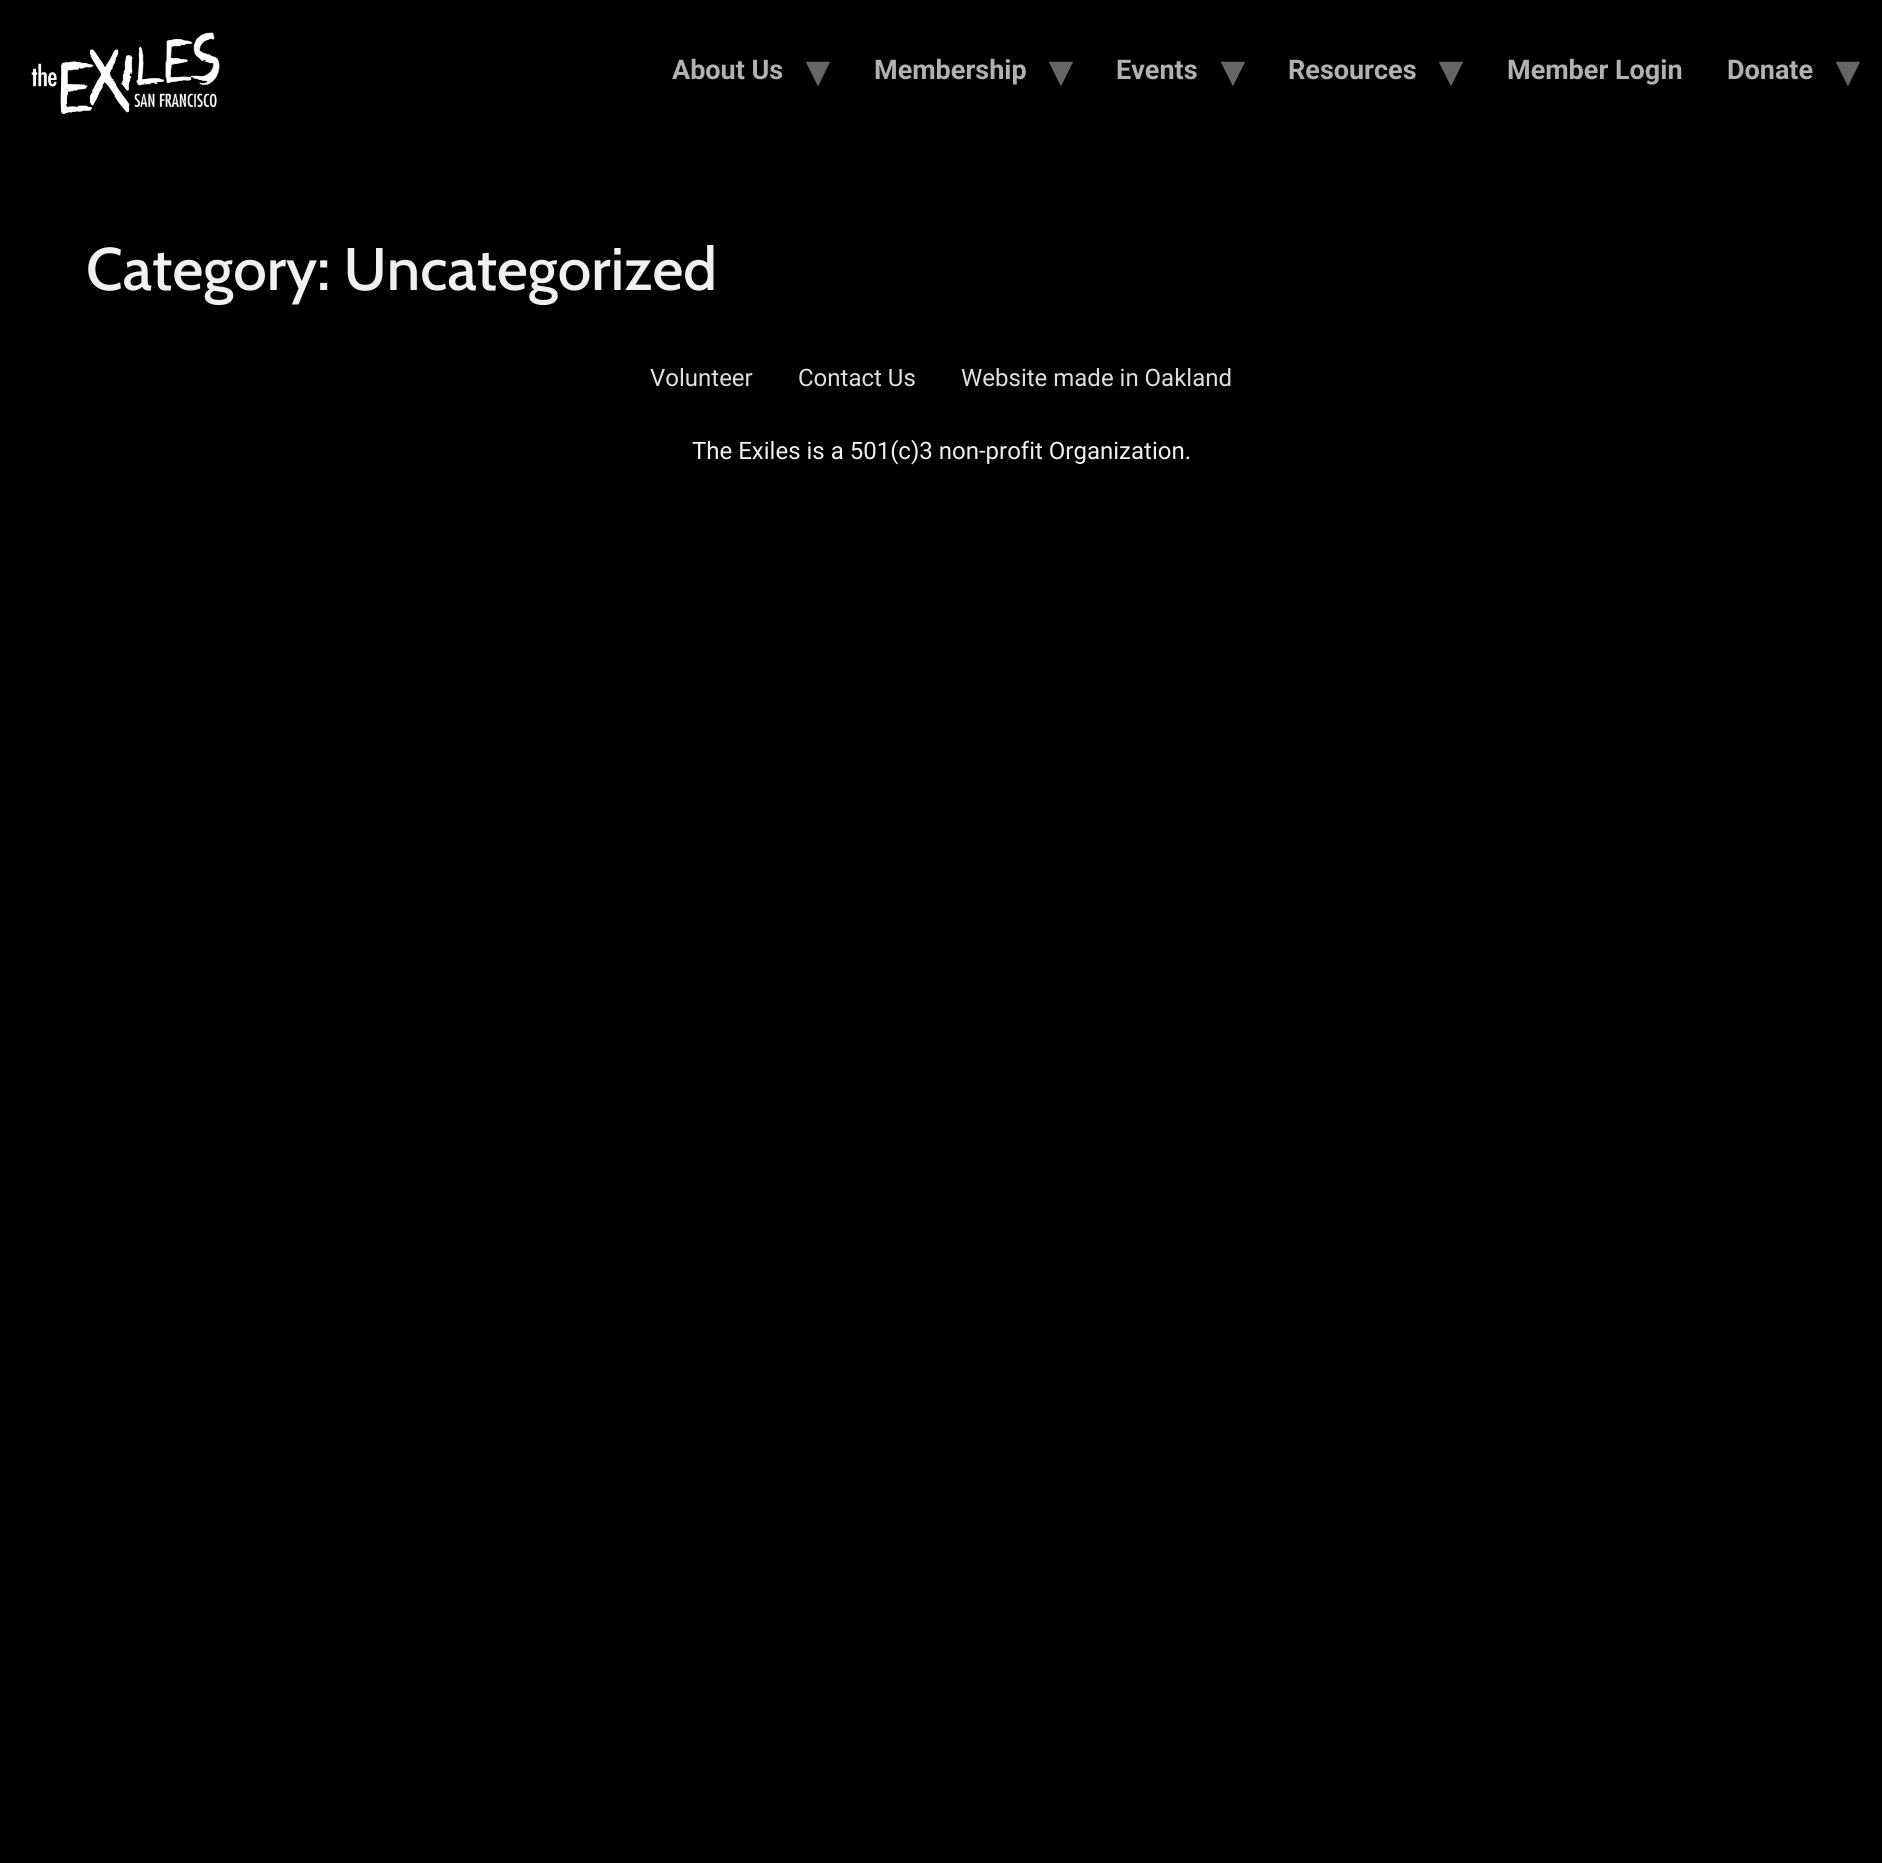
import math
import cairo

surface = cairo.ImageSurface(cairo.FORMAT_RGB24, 1882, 1863)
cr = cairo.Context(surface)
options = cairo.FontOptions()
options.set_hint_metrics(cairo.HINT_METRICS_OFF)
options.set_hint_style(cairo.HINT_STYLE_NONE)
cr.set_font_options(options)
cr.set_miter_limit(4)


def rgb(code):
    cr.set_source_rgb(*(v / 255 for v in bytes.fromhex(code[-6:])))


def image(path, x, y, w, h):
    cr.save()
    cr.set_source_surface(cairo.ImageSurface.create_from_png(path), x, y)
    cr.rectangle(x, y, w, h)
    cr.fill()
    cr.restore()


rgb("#000000")
cr.paint()
image("img/1.png", 31, 32, 189, 82)
cr.select_font_face("Roboto", cairo.FONT_SLANT_NORMAL, cairo.FONT_WEIGHT_BOLD)
cr.set_font_size(27)
rgb("#b2b1b1")
cr.move_to(672, 79)
cr.show_text("About Us")
cr.select_font_face("DejaVu Sans", cairo.FONT_SLANT_NORMAL, cairo.FONT_WEIGHT_BOLD)
cr.set_font_size(45)
rgb("#666666")
cr.move_to(806, 86)
cr.show_text("▾")
cr.select_font_face("Roboto", cairo.FONT_SLANT_NORMAL, cairo.FONT_WEIGHT_BOLD)
cr.set_font_size(27)
rgb("#b2b1b1")
cr.move_to(874, 79)
cr.show_text("Membership")
cr.select_font_face("DejaVu Sans", cairo.FONT_SLANT_NORMAL, cairo.FONT_WEIGHT_BOLD)
cr.set_font_size(45)
rgb("#666666")
cr.move_to(1049, 86)
cr.show_text("▾")
cr.select_font_face("Roboto", cairo.FONT_SLANT_NORMAL, cairo.FONT_WEIGHT_BOLD)
cr.set_font_size(27)
rgb("#b2b1b1")
cr.move_to(1116, 79)
cr.show_text("Events")
cr.select_font_face("DejaVu Sans", cairo.FONT_SLANT_NORMAL, cairo.FONT_WEIGHT_BOLD)
cr.set_font_size(45)
rgb("#666666")
cr.move_to(1221, 86)
cr.show_text("▾")
cr.select_font_face("Roboto", cairo.FONT_SLANT_NORMAL, cairo.FONT_WEIGHT_BOLD)
cr.set_font_size(27)
rgb("#b2b1b1")
cr.move_to(1288, 79)
cr.show_text("Resources")
cr.select_font_face("DejaVu Sans", cairo.FONT_SLANT_NORMAL, cairo.FONT_WEIGHT_BOLD)
cr.set_font_size(45)
rgb("#666666")
cr.move_to(1439, 86)
cr.show_text("▾")
cr.select_font_face("Roboto", cairo.FONT_SLANT_NORMAL, cairo.FONT_WEIGHT_BOLD)
cr.set_font_size(27)
rgb("#b2b1b1")
cr.move_to(1507, 79)
cr.show_text("Member Login")
cr.move_to(1727, 79)
cr.show_text("Donate")
cr.select_font_face("DejaVu Sans", cairo.FONT_SLANT_NORMAL, cairo.FONT_WEIGHT_BOLD)
cr.set_font_size(45)
rgb("#666666")
cr.move_to(1836, 86)
cr.show_text("▾")
cr.select_font_face("Cabin Medium")
cr.set_font_size(60)
rgb("#f0f0f0")
cr.move_to(86, 290)
cr.show_text("Category: Uncategorized")
cr.select_font_face("Roboto")
cr.set_font_size(24)
rgb("#dfdfdf")
for x, y, s in [
    (650, 386, "Volunteer"),
    (798, 386, "Contact Us"),
    (961, 386, "Website made in Oakland"),
]:
    cr.move_to(x, y)
    cr.show_text(s)
rgb("#f0f0f0")
cr.move_to(692, 459)
cr.show_text("The Exiles is a 501(c)3 non-profit Organization.")
surface.write_to_png("page.png")
